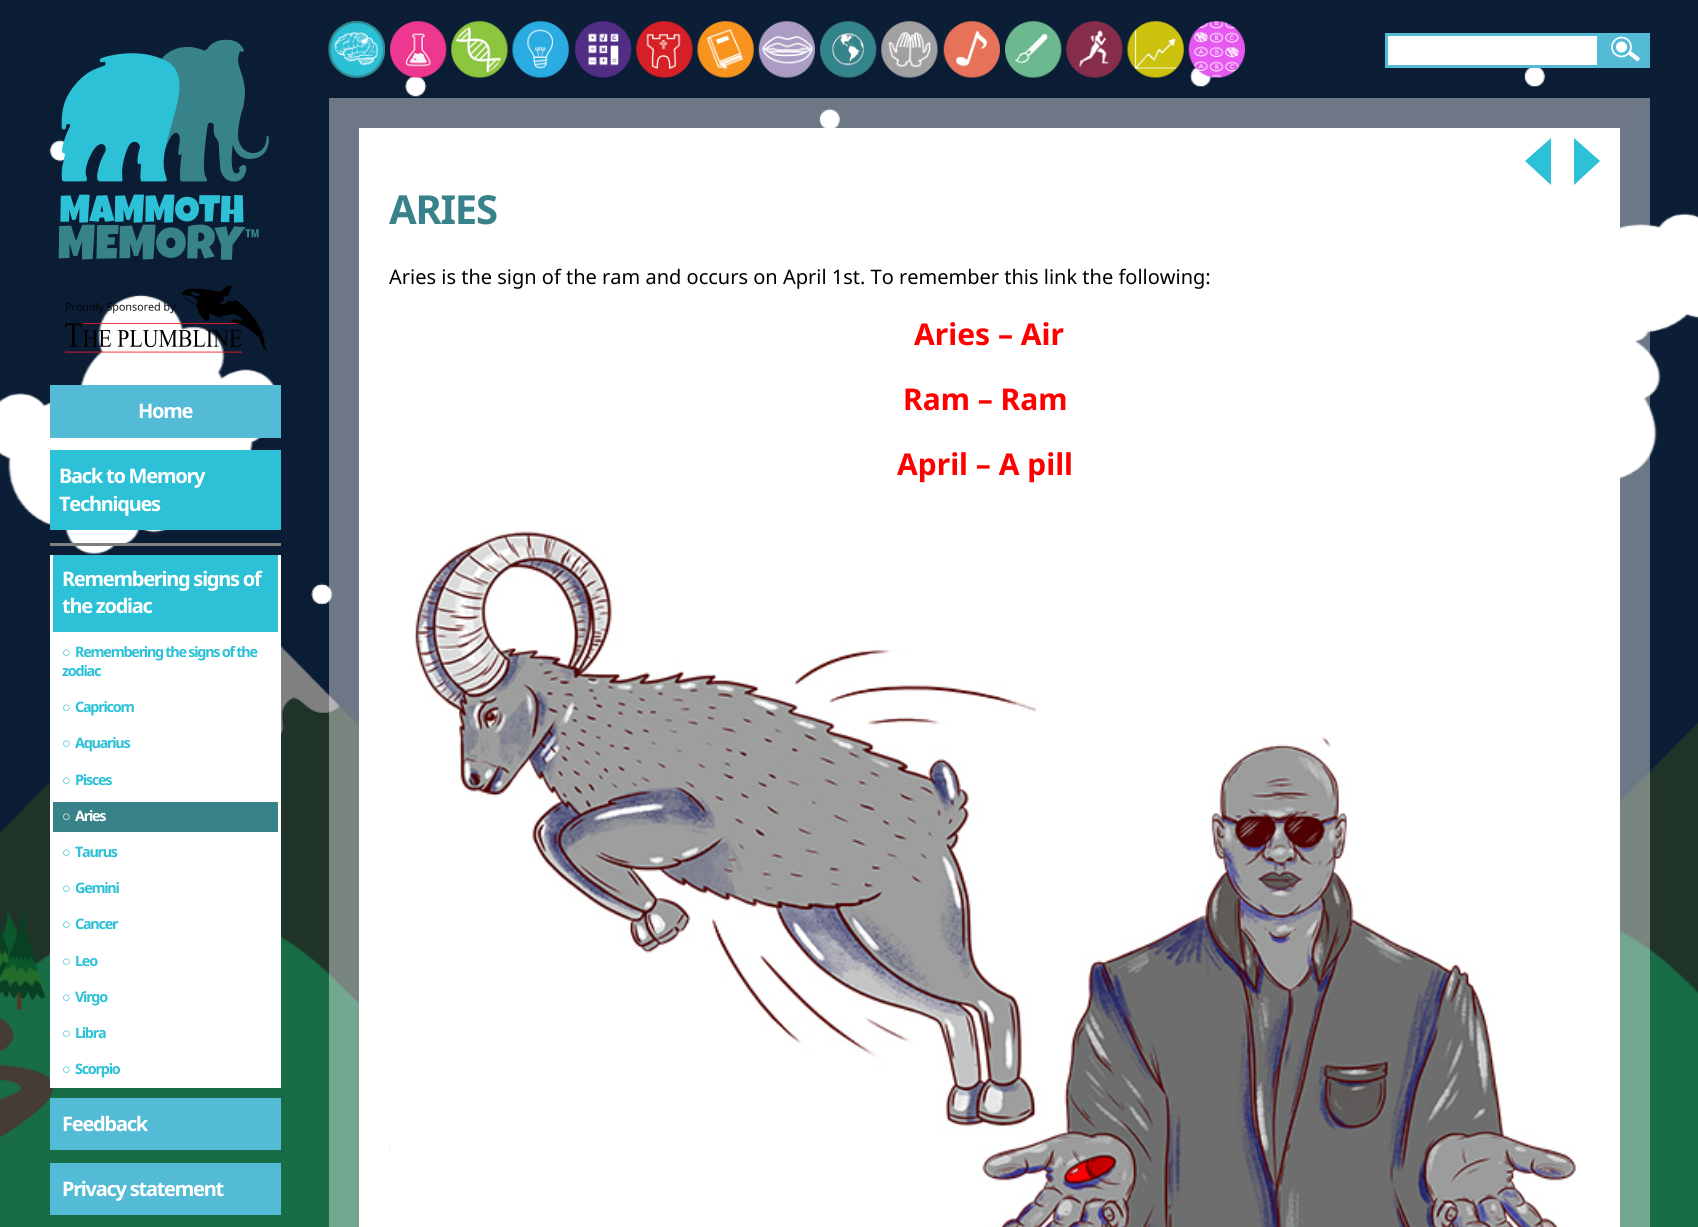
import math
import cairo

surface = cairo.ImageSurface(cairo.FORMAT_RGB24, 1698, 1227)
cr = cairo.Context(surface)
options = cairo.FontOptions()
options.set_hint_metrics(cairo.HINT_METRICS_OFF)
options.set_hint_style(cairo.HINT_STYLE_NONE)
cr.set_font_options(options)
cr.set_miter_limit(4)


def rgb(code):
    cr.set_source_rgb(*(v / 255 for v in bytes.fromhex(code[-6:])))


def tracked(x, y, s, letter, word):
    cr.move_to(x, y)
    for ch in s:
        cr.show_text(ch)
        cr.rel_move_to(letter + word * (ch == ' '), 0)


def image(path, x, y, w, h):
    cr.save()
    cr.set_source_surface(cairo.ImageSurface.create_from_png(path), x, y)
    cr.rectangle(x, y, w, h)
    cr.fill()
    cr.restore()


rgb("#0b1e35")
cr.paint()
image("img/1.png", 49, 65, 1585, 738)
image("img/2.png", 0, 213, 1698, 342)
image("img/3.png", 0, 645, 1698, 273)
rgb("#203329")
cr.rectangle(0, 918, 1698, 88)
cr.fill()
image("img/4.png", 0, 903, 1698, 324)
image("img/5.png", 328, 21, 57, 57)
image("img/6.png", 328, 21, 57, 57)
image("img/7.png", 390, 21, 57, 57)
image("img/8.png", 451, 21, 57, 57)
image("img/9.png", 512, 21, 57, 57)
image("img/10.png", 575, 21, 57, 57)
image("img/11.png", 636, 21, 57, 57)
image("img/12.png", 697, 21, 57, 57)
image("img/13.png", 758, 21, 57, 57)
image("img/14.png", 820, 21, 57, 57)
image("img/15.png", 881, 21, 57, 57)
image("img/16.png", 943, 21, 57, 57)
image("img/17.png", 1005, 21, 57, 57)
image("img/18.png", 1066, 21, 57, 57)
image("img/19.png", 1127, 21, 57, 57)
image("img/20.png", 1188, 21, 57, 57)
rgb("#ffffff")
cr.rectangle(1386.5, 34.5, 212, 32)
cr.fill_preserve()
rgb("#54bbd7")
cr.set_line_width(3)
cr.stroke()
cr.rectangle(1600, 33, 50, 35)
cr.fill()
image("img/21.png", 1611, 36, 29, 25)
cr.set_source_rgba(1, 1, 1, 0.4)
cr.rectangle(329, 98, 1321, 1129)
cr.fill()
rgb("#ffffff")
cr.rectangle(359, 128, 1261, 1099)
cr.fill()
rgb("#2cc1d7")
cr.new_path()
cr.move_to(1551, 138)
cr.line_to(1551, 185)
cr.line_to(1525, 161)
cr.close_path()
cr.fill()
cr.new_path()
cr.move_to(1574, 185)
cr.line_to(1574, 138)
cr.line_to(1600, 161)
cr.close_path()
cr.fill()
image("img/22.png", 389, 531, 1187, 696)
image("img/23.png", 58, 39, 211, 221)
image("img/24.png", 64, 286, 203, 67)
for x, y, w, h, color in [
    (50, 385, 231, 53, "#54bbd7"),
    (50, 450, 231, 80, "#2cc1d7"),
    (50, 543, 231, 3, "#808080"),
    (53, 555, 225, 77, "#2cc1d7"),
]:
    rgb(color)
    cr.rectangle(x, y, w, h)
    cr.fill()
cr.save()
cr.rectangle(50, 555, 231, 533)
cr.clip()
cr.rectangle(51.5, 551.5, 228, 82)
rgb("#ffffff")
cr.stroke()
cr.restore()
for x, y, w, h, color in [
    (50, 635, 231, 453, "#ffffff"),
    (53, 802, 225, 30, "#388389"),
    (50, 1098, 231, 52, "#54bbd7"),
    (50, 1163, 231, 52, "#54bbd7"),
]:
    rgb(color)
    cr.rectangle(x, y, w, h)
    cr.fill()
cr.select_font_face("Noto Sans", cairo.FONT_SLANT_NORMAL, cairo.FONT_WEIGHT_BOLD)
cr.set_font_size(40)
rgb("#388389")
tracked(389, 224, "ARIES", -1.25, 0)
cr.select_font_face("Noto Sans")
cr.set_font_size(20)
rgb("#000000")
cr.move_to(389, 284)
cr.show_text("Aries is the sign of the ram and occurs on April 1st. To remember this link the following:")
cr.select_font_face("Noto Sans", cairo.FONT_SLANT_NORMAL, cairo.FONT_WEIGHT_BOLD)
cr.set_font_size(30)
rgb("#ff0000")
for x, y, s in [
    (914, 345, "Aries – Air"),
    (903, 410, "Ram – Ram"),
    (897, 475, "April – A pill"),
]:
    cr.move_to(x, y)
    cr.show_text(s)
cr.set_font_size(20)
rgb("#ffffff")
for x, y, s in [
    (138, 418, "Home"),
    (59, 483, "Back to Memory"),
    (59, 511, "Techniques"),
    (62, 586, "Remembering signs of"),
    (62, 613, "the zodiac"),
]:
    tracked(x, y, s, -1.25, 0)
cr.select_font_face("Liberation Sans", cairo.FONT_SLANT_NORMAL, cairo.FONT_WEIGHT_BOLD)
cr.set_font_size(14.4)
rgb("#2cc1d7")
tracked(62, 657, "○", -1.25, 0)
cr.select_font_face("Noto Sans", cairo.FONT_SLANT_NORMAL, cairo.FONT_WEIGHT_BOLD)
tracked(75, 657, "Remembering the signs of the", -1.25, 0)
tracked(62, 676, "zodiac", -1.25, 0)
cr.select_font_face("Liberation Sans", cairo.FONT_SLANT_NORMAL, cairo.FONT_WEIGHT_BOLD)
tracked(62, 712, "○", -1.25, 0)
cr.select_font_face("Noto Sans", cairo.FONT_SLANT_NORMAL, cairo.FONT_WEIGHT_BOLD)
tracked(75, 712, "Capricorn", -1.25, 0)
cr.select_font_face("Liberation Sans", cairo.FONT_SLANT_NORMAL, cairo.FONT_WEIGHT_BOLD)
tracked(62, 748, "○", -1.25, 0)
cr.select_font_face("Noto Sans", cairo.FONT_SLANT_NORMAL, cairo.FONT_WEIGHT_BOLD)
tracked(75, 748, "Aquarius", -1.25, 0)
cr.select_font_face("Liberation Sans", cairo.FONT_SLANT_NORMAL, cairo.FONT_WEIGHT_BOLD)
tracked(62, 785, "○", -1.25, 0)
cr.select_font_face("Noto Sans", cairo.FONT_SLANT_NORMAL, cairo.FONT_WEIGHT_BOLD)
tracked(75, 785, "Pisces", -1.25, 0)
cr.select_font_face("Liberation Sans", cairo.FONT_SLANT_NORMAL, cairo.FONT_WEIGHT_BOLD)
rgb("#ffffff")
tracked(62, 821, "○", -1.25, 0)
cr.select_font_face("Noto Sans", cairo.FONT_SLANT_NORMAL, cairo.FONT_WEIGHT_BOLD)
tracked(75, 821, "Aries", -1.25, 0)
cr.select_font_face("Liberation Sans", cairo.FONT_SLANT_NORMAL, cairo.FONT_WEIGHT_BOLD)
rgb("#2cc1d7")
tracked(62, 857, "○", -1.25, 0)
cr.select_font_face("Noto Sans", cairo.FONT_SLANT_NORMAL, cairo.FONT_WEIGHT_BOLD)
tracked(75, 857, "Taurus", -1.25, 0)
cr.select_font_face("Liberation Sans", cairo.FONT_SLANT_NORMAL, cairo.FONT_WEIGHT_BOLD)
tracked(62, 893, "○", -1.25, 0)
cr.select_font_face("Noto Sans", cairo.FONT_SLANT_NORMAL, cairo.FONT_WEIGHT_BOLD)
tracked(75, 893, "Gemini", -1.25, 0)
cr.select_font_face("Liberation Sans", cairo.FONT_SLANT_NORMAL, cairo.FONT_WEIGHT_BOLD)
tracked(62, 929, "○", -1.25, 0)
cr.select_font_face("Noto Sans", cairo.FONT_SLANT_NORMAL, cairo.FONT_WEIGHT_BOLD)
tracked(75, 929, "Cancer", -1.25, 0)
cr.select_font_face("Liberation Sans", cairo.FONT_SLANT_NORMAL, cairo.FONT_WEIGHT_BOLD)
tracked(62, 966, "○", -1.25, 0)
cr.select_font_face("Noto Sans", cairo.FONT_SLANT_NORMAL, cairo.FONT_WEIGHT_BOLD)
tracked(75, 966, "Leo", -1.25, 0)
cr.select_font_face("Liberation Sans", cairo.FONT_SLANT_NORMAL, cairo.FONT_WEIGHT_BOLD)
tracked(62, 1002, "○", -1.25, 0)
cr.select_font_face("Noto Sans", cairo.FONT_SLANT_NORMAL, cairo.FONT_WEIGHT_BOLD)
tracked(75, 1002, "Virgo", -1.25, 0)
cr.select_font_face("Liberation Sans", cairo.FONT_SLANT_NORMAL, cairo.FONT_WEIGHT_BOLD)
tracked(62, 1038, "○", -1.25, 0)
cr.select_font_face("Noto Sans", cairo.FONT_SLANT_NORMAL, cairo.FONT_WEIGHT_BOLD)
tracked(75, 1038, "Libra", -1.25, 0)
cr.select_font_face("Liberation Sans", cairo.FONT_SLANT_NORMAL, cairo.FONT_WEIGHT_BOLD)
tracked(62, 1074, "○", -1.25, 0)
cr.select_font_face("Noto Sans", cairo.FONT_SLANT_NORMAL, cairo.FONT_WEIGHT_BOLD)
tracked(75, 1074, "Scorpio", -1.25, 0)
cr.set_font_size(20)
rgb("#ffffff")
tracked(62, 1131, "Feedback", -1.25, 0)
tracked(62, 1196, "Privacy statement", -1.25, 0)
surface.write_to_png("page.png")
